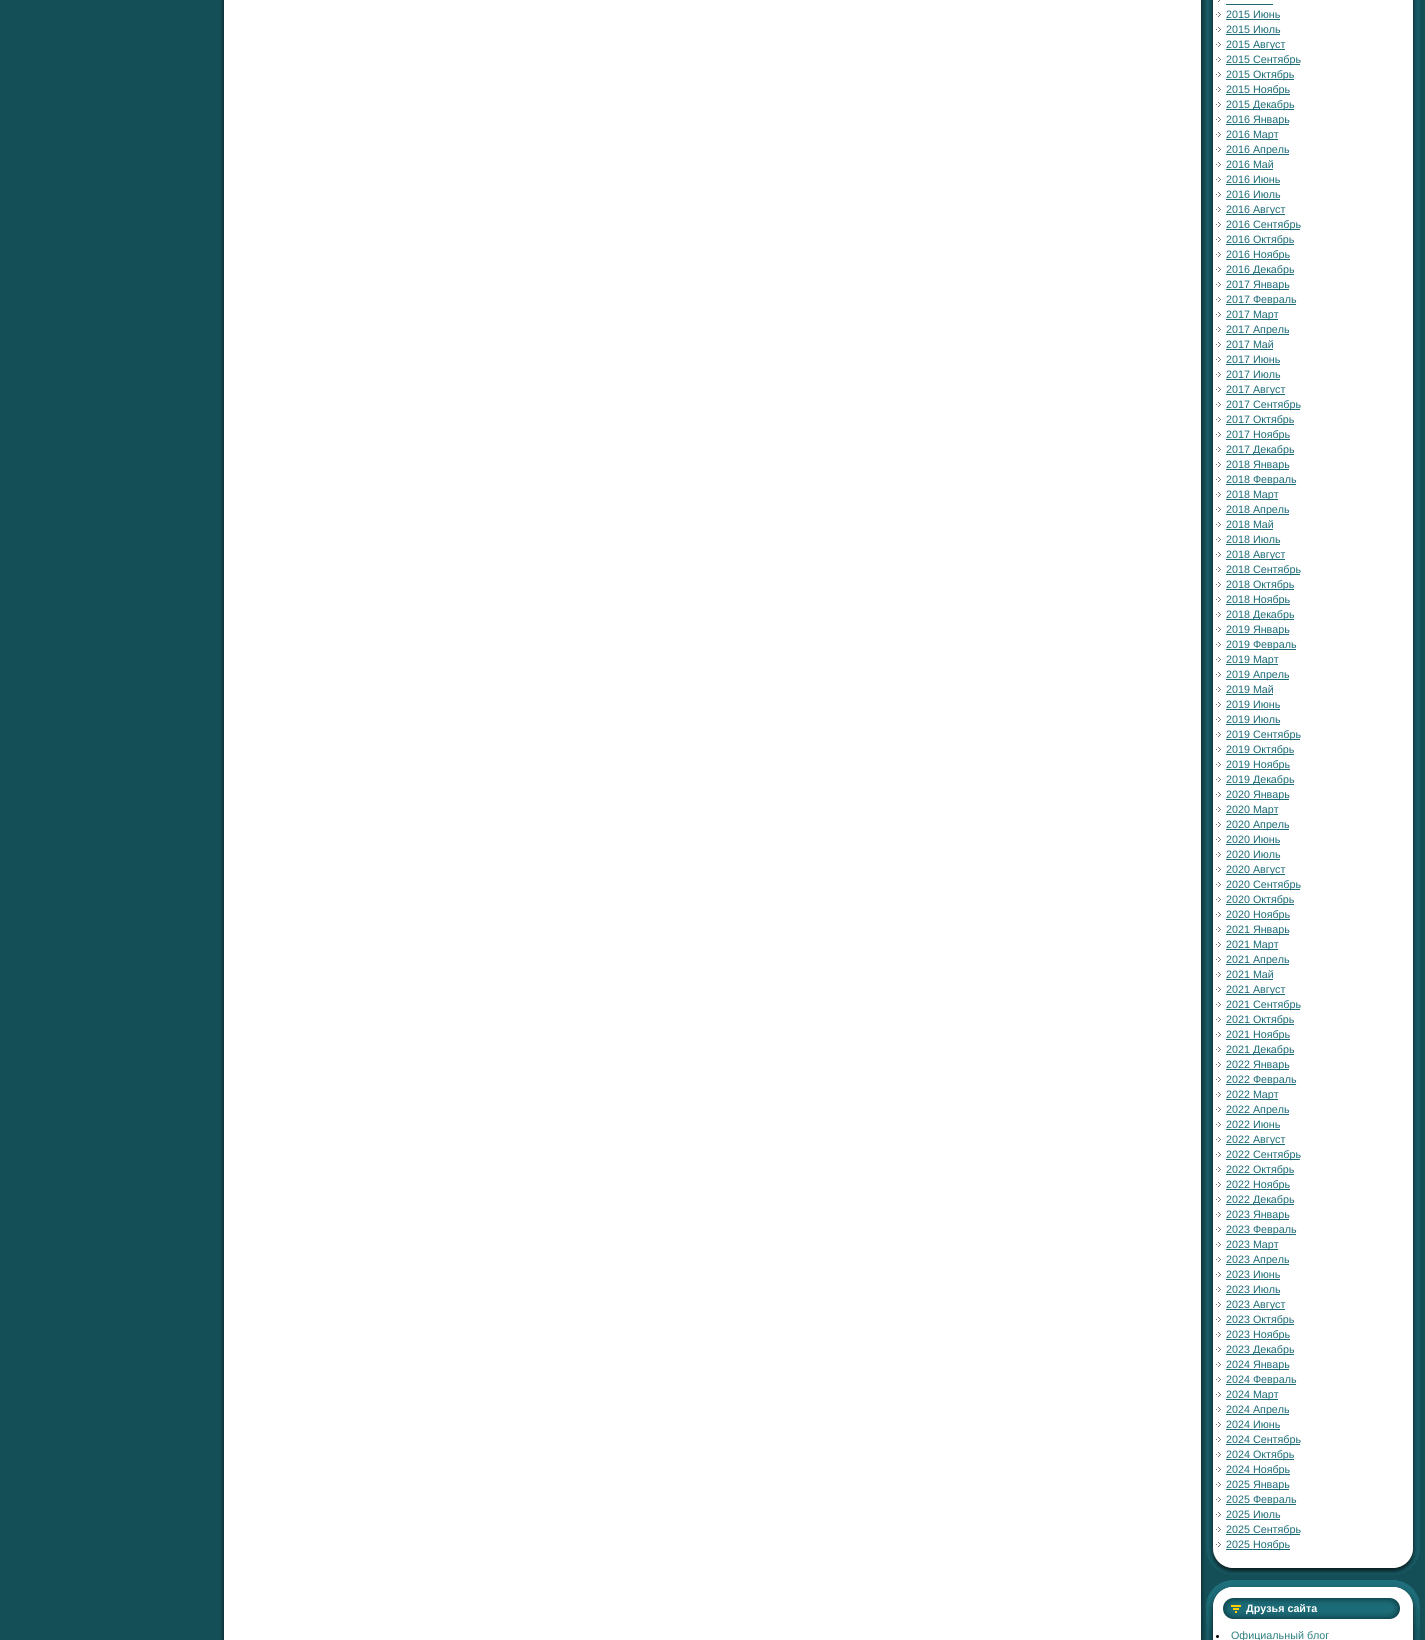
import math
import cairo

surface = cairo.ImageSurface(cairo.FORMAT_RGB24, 1425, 1640)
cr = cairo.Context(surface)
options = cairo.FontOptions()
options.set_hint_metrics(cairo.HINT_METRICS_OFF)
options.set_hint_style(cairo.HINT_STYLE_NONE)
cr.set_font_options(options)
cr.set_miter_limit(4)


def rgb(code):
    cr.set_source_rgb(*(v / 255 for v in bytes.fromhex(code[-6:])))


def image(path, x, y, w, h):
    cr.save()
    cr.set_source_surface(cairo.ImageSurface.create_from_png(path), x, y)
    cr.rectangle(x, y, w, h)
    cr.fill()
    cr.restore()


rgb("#144e56")
cr.paint()
image("img/1.png", 220, 0, 22, 1640)
rgb("#ffffff")
cr.rectangle(242, 0, 941, 1640)
cr.fill()
image("img/2.png", 1183, 0, 22, 1640)
image("img/3.png", 1206, 0, 214, 1549)
image("img/4.png", 1206, 1549, 214, 26)
image("img/5.png", 1218, 0, 2, 2)
rgb("#1c6c77")
cr.rectangle(1226, 4, 47, 1)
cr.fill()
image("img/6.png", 1216, 12, 5, 5)
cr.rectangle(1226, 19, 54, 1)
cr.fill()
image("img/6.png", 1216, 27, 5, 5)
cr.rectangle(1226, 34, 54, 1)
cr.fill()
image("img/6.png", 1216, 42, 5, 5)
cr.rectangle(1226, 49, 59, 1)
cr.fill()
image("img/6.png", 1216, 57, 5, 5)
cr.rectangle(1226, 64, 74, 1)
cr.fill()
image("img/6.png", 1216, 72, 5, 5)
cr.rectangle(1226, 79, 68, 1)
cr.fill()
image("img/6.png", 1216, 87, 5, 5)
cr.rectangle(1226, 94, 64, 1)
cr.fill()
image("img/6.png", 1216, 102, 5, 5)
cr.rectangle(1226, 109, 68, 1)
cr.fill()
image("img/6.png", 1216, 117, 5, 5)
cr.rectangle(1226, 124, 63, 1)
cr.fill()
image("img/6.png", 1216, 132, 5, 5)
cr.rectangle(1226, 139, 52, 1)
cr.fill()
image("img/6.png", 1216, 147, 5, 5)
cr.rectangle(1226, 154, 63, 1)
cr.fill()
image("img/6.png", 1216, 162, 5, 5)
cr.rectangle(1226, 169, 47, 1)
cr.fill()
image("img/6.png", 1216, 177, 5, 5)
cr.rectangle(1226, 184, 54, 1)
cr.fill()
image("img/6.png", 1216, 192, 5, 5)
cr.rectangle(1226, 199, 54, 1)
cr.fill()
image("img/6.png", 1216, 207, 5, 5)
cr.rectangle(1226, 214, 59, 1)
cr.fill()
image("img/6.png", 1216, 222, 5, 5)
cr.rectangle(1226, 229, 74, 1)
cr.fill()
image("img/6.png", 1216, 237, 5, 5)
cr.rectangle(1226, 244, 68, 1)
cr.fill()
image("img/6.png", 1216, 252, 5, 5)
cr.rectangle(1226, 259, 64, 1)
cr.fill()
image("img/6.png", 1216, 267, 5, 5)
cr.rectangle(1226, 274, 68, 1)
cr.fill()
image("img/6.png", 1216, 282, 5, 5)
cr.rectangle(1226, 289, 63, 1)
cr.fill()
image("img/6.png", 1216, 297, 5, 5)
cr.rectangle(1226, 304, 70, 1)
cr.fill()
image("img/6.png", 1216, 312, 5, 5)
cr.rectangle(1226, 319, 52, 1)
cr.fill()
image("img/6.png", 1216, 327, 5, 5)
cr.rectangle(1226, 334, 63, 1)
cr.fill()
image("img/6.png", 1216, 342, 5, 5)
cr.rectangle(1226, 349, 47, 1)
cr.fill()
image("img/6.png", 1216, 357, 5, 5)
cr.rectangle(1226, 364, 54, 1)
cr.fill()
image("img/6.png", 1216, 372, 5, 5)
cr.rectangle(1226, 379, 54, 1)
cr.fill()
image("img/6.png", 1216, 387, 5, 5)
cr.rectangle(1226, 394, 59, 1)
cr.fill()
image("img/6.png", 1216, 402, 5, 5)
cr.rectangle(1226, 409, 74, 1)
cr.fill()
image("img/6.png", 1216, 417, 5, 5)
cr.rectangle(1226, 424, 68, 1)
cr.fill()
image("img/6.png", 1216, 432, 5, 5)
cr.rectangle(1226, 439, 64, 1)
cr.fill()
image("img/6.png", 1216, 447, 5, 5)
cr.rectangle(1226, 454, 68, 1)
cr.fill()
image("img/6.png", 1216, 462, 5, 5)
cr.rectangle(1226, 469, 63, 1)
cr.fill()
image("img/6.png", 1216, 477, 5, 5)
cr.rectangle(1226, 484, 70, 1)
cr.fill()
image("img/6.png", 1216, 492, 5, 5)
cr.rectangle(1226, 499, 52, 1)
cr.fill()
image("img/6.png", 1216, 507, 5, 5)
cr.rectangle(1226, 514, 63, 1)
cr.fill()
image("img/6.png", 1216, 522, 5, 5)
cr.rectangle(1226, 529, 47, 1)
cr.fill()
image("img/6.png", 1216, 537, 5, 5)
cr.rectangle(1226, 544, 54, 1)
cr.fill()
image("img/6.png", 1216, 552, 5, 5)
cr.rectangle(1226, 559, 59, 1)
cr.fill()
image("img/6.png", 1216, 567, 5, 5)
cr.rectangle(1226, 574, 74, 1)
cr.fill()
image("img/6.png", 1216, 582, 5, 5)
cr.rectangle(1226, 589, 68, 1)
cr.fill()
image("img/6.png", 1216, 597, 5, 5)
cr.rectangle(1226, 604, 64, 1)
cr.fill()
image("img/6.png", 1216, 612, 5, 5)
cr.rectangle(1226, 619, 68, 1)
cr.fill()
image("img/6.png", 1216, 627, 5, 5)
cr.rectangle(1226, 634, 63, 1)
cr.fill()
image("img/6.png", 1216, 642, 5, 5)
cr.rectangle(1226, 649, 70, 1)
cr.fill()
image("img/6.png", 1216, 657, 5, 5)
cr.rectangle(1226, 664, 52, 1)
cr.fill()
image("img/6.png", 1216, 672, 5, 5)
cr.rectangle(1226, 679, 63, 1)
cr.fill()
image("img/6.png", 1216, 687, 5, 5)
cr.rectangle(1226, 694, 47, 1)
cr.fill()
image("img/6.png", 1216, 702, 5, 5)
cr.rectangle(1226, 709, 54, 1)
cr.fill()
image("img/6.png", 1216, 717, 5, 5)
cr.rectangle(1226, 724, 54, 1)
cr.fill()
image("img/6.png", 1216, 732, 5, 5)
cr.rectangle(1226, 739, 74, 1)
cr.fill()
image("img/6.png", 1216, 747, 5, 5)
cr.rectangle(1226, 754, 68, 1)
cr.fill()
image("img/6.png", 1216, 762, 5, 5)
cr.rectangle(1226, 769, 64, 1)
cr.fill()
image("img/6.png", 1216, 777, 5, 5)
cr.rectangle(1226, 784, 68, 1)
cr.fill()
image("img/6.png", 1216, 792, 5, 5)
cr.rectangle(1226, 799, 63, 1)
cr.fill()
image("img/6.png", 1216, 807, 5, 5)
cr.rectangle(1226, 814, 52, 1)
cr.fill()
image("img/6.png", 1216, 822, 5, 5)
cr.rectangle(1226, 829, 63, 1)
cr.fill()
image("img/6.png", 1216, 837, 5, 5)
cr.rectangle(1226, 844, 54, 1)
cr.fill()
image("img/6.png", 1216, 852, 5, 5)
cr.rectangle(1226, 859, 54, 1)
cr.fill()
image("img/6.png", 1216, 867, 5, 5)
cr.rectangle(1226, 874, 59, 1)
cr.fill()
image("img/6.png", 1216, 882, 5, 5)
cr.rectangle(1226, 889, 74, 1)
cr.fill()
image("img/6.png", 1216, 897, 5, 5)
cr.rectangle(1226, 904, 68, 1)
cr.fill()
image("img/6.png", 1216, 912, 5, 5)
cr.rectangle(1226, 919, 64, 1)
cr.fill()
image("img/6.png", 1216, 927, 5, 5)
cr.rectangle(1226, 934, 63, 1)
cr.fill()
image("img/6.png", 1216, 942, 5, 5)
cr.rectangle(1226, 949, 52, 1)
cr.fill()
image("img/6.png", 1216, 957, 5, 5)
cr.rectangle(1226, 964, 63, 1)
cr.fill()
image("img/6.png", 1216, 972, 5, 5)
cr.rectangle(1226, 979, 47, 1)
cr.fill()
image("img/6.png", 1216, 987, 5, 5)
cr.rectangle(1226, 994, 59, 1)
cr.fill()
image("img/6.png", 1216, 1002, 5, 5)
cr.rectangle(1226, 1009, 74, 1)
cr.fill()
image("img/6.png", 1216, 1017, 5, 5)
cr.rectangle(1226, 1024, 68, 1)
cr.fill()
image("img/6.png", 1216, 1032, 5, 5)
cr.rectangle(1226, 1039, 64, 1)
cr.fill()
image("img/6.png", 1216, 1047, 5, 5)
cr.rectangle(1226, 1054, 68, 1)
cr.fill()
image("img/6.png", 1216, 1062, 5, 5)
cr.rectangle(1226, 1069, 63, 1)
cr.fill()
image("img/6.png", 1216, 1077, 5, 5)
cr.rectangle(1226, 1084, 70, 1)
cr.fill()
image("img/6.png", 1216, 1092, 5, 5)
cr.rectangle(1226, 1099, 52, 1)
cr.fill()
image("img/6.png", 1216, 1107, 5, 5)
cr.rectangle(1226, 1114, 63, 1)
cr.fill()
image("img/6.png", 1216, 1122, 5, 5)
cr.rectangle(1226, 1129, 54, 1)
cr.fill()
image("img/6.png", 1216, 1137, 5, 5)
cr.rectangle(1226, 1144, 59, 1)
cr.fill()
image("img/6.png", 1216, 1152, 5, 5)
cr.rectangle(1226, 1159, 74, 1)
cr.fill()
image("img/6.png", 1216, 1167, 5, 5)
cr.rectangle(1226, 1174, 68, 1)
cr.fill()
image("img/6.png", 1216, 1182, 5, 5)
cr.rectangle(1226, 1189, 64, 1)
cr.fill()
image("img/6.png", 1216, 1197, 5, 5)
cr.rectangle(1226, 1204, 68, 1)
cr.fill()
image("img/6.png", 1216, 1212, 5, 5)
cr.rectangle(1226, 1219, 63, 1)
cr.fill()
image("img/6.png", 1216, 1227, 5, 5)
cr.rectangle(1226, 1234, 70, 1)
cr.fill()
image("img/6.png", 1216, 1242, 5, 5)
cr.rectangle(1226, 1249, 52, 1)
cr.fill()
image("img/6.png", 1216, 1257, 5, 5)
cr.rectangle(1226, 1264, 63, 1)
cr.fill()
image("img/6.png", 1216, 1272, 5, 5)
cr.rectangle(1226, 1279, 54, 1)
cr.fill()
image("img/6.png", 1216, 1287, 5, 5)
cr.rectangle(1226, 1294, 54, 1)
cr.fill()
image("img/6.png", 1216, 1302, 5, 5)
cr.rectangle(1226, 1309, 59, 1)
cr.fill()
image("img/6.png", 1216, 1317, 5, 5)
cr.rectangle(1226, 1324, 68, 1)
cr.fill()
image("img/6.png", 1216, 1332, 5, 5)
cr.rectangle(1226, 1339, 64, 1)
cr.fill()
image("img/6.png", 1216, 1347, 5, 5)
cr.rectangle(1226, 1354, 68, 1)
cr.fill()
image("img/6.png", 1216, 1362, 5, 5)
cr.rectangle(1226, 1369, 63, 1)
cr.fill()
image("img/6.png", 1216, 1377, 5, 5)
cr.rectangle(1226, 1384, 70, 1)
cr.fill()
image("img/6.png", 1216, 1392, 5, 5)
cr.rectangle(1226, 1399, 52, 1)
cr.fill()
image("img/6.png", 1216, 1407, 5, 5)
cr.rectangle(1226, 1414, 63, 1)
cr.fill()
image("img/6.png", 1216, 1422, 5, 5)
cr.rectangle(1226, 1429, 54, 1)
cr.fill()
image("img/6.png", 1216, 1437, 5, 5)
cr.rectangle(1226, 1444, 74, 1)
cr.fill()
image("img/6.png", 1216, 1452, 5, 5)
cr.rectangle(1226, 1459, 68, 1)
cr.fill()
image("img/6.png", 1216, 1467, 5, 5)
cr.rectangle(1226, 1474, 64, 1)
cr.fill()
image("img/6.png", 1216, 1482, 5, 5)
cr.rectangle(1226, 1489, 63, 1)
cr.fill()
image("img/6.png", 1216, 1497, 5, 5)
cr.rectangle(1226, 1504, 70, 1)
cr.fill()
image("img/6.png", 1216, 1512, 5, 5)
cr.rectangle(1226, 1519, 54, 1)
cr.fill()
image("img/6.png", 1216, 1527, 5, 5)
cr.rectangle(1226, 1534, 74, 1)
cr.fill()
image("img/6.png", 1216, 1542, 5, 5)
cr.rectangle(1226, 1549, 64, 1)
cr.fill()
image("img/7.png", 1206, 1629, 214, 11)
image("img/8.png", 1206, 1580, 214, 49)
rgb("#000000")
cr.arc(1217.5, 1636.5, 1.5, 0, 2 * math.pi)
cr.fill()
cr.select_font_face("Liberation Sans")
cr.set_font_size(10.75)
rgb("#1c6c77")
for x, y, s in [
    (1226, 18, "2015 Июнь"),
    (1226, 33, "2015 Июль"),
    (1226, 48, "2015 Август"),
    (1226, 63, "2015 Сентябрь"),
    (1226, 78, "2015 Октябрь"),
    (1226, 93, "2015 Ноябрь"),
    (1226, 108, "2015 Декабрь"),
    (1226, 123, "2016 Январь"),
    (1226, 138, "2016 Март"),
    (1226, 153, "2016 Апрель"),
    (1226, 168, "2016 Май"),
    (1226, 183, "2016 Июнь"),
    (1226, 198, "2016 Июль"),
    (1226, 213, "2016 Август"),
    (1226, 228, "2016 Сентябрь"),
    (1226, 243, "2016 Октябрь"),
    (1226, 258, "2016 Ноябрь"),
    (1226, 273, "2016 Декабрь"),
    (1226, 288, "2017 Январь"),
    (1226, 303, "2017 Февраль"),
    (1226, 318, "2017 Март"),
    (1226, 333, "2017 Апрель"),
    (1226, 348, "2017 Май"),
    (1226, 363, "2017 Июнь"),
    (1226, 378, "2017 Июль"),
    (1226, 393, "2017 Август"),
    (1226, 408, "2017 Сентябрь"),
    (1226, 423, "2017 Октябрь"),
    (1226, 438, "2017 Ноябрь"),
    (1226, 453, "2017 Декабрь"),
    (1226, 468, "2018 Январь"),
    (1226, 483, "2018 Февраль"),
    (1226, 498, "2018 Март"),
    (1226, 513, "2018 Апрель"),
    (1226, 528, "2018 Май"),
    (1226, 543, "2018 Июль"),
    (1226, 558, "2018 Август"),
    (1226, 573, "2018 Сентябрь"),
    (1226, 588, "2018 Октябрь"),
    (1226, 603, "2018 Ноябрь"),
    (1226, 618, "2018 Декабрь"),
    (1226, 633, "2019 Январь"),
    (1226, 648, "2019 Февраль"),
    (1226, 663, "2019 Март"),
    (1226, 678, "2019 Апрель"),
    (1226, 693, "2019 Май"),
    (1226, 708, "2019 Июнь"),
    (1226, 723, "2019 Июль"),
    (1226, 738, "2019 Сентябрь"),
    (1226, 753, "2019 Октябрь"),
    (1226, 768, "2019 Ноябрь"),
    (1226, 783, "2019 Декабрь"),
    (1226, 798, "2020 Январь"),
    (1226, 813, "2020 Март"),
    (1226, 828, "2020 Апрель"),
    (1226, 843, "2020 Июнь"),
    (1226, 858, "2020 Июль"),
    (1226, 873, "2020 Август"),
    (1226, 888, "2020 Сентябрь"),
    (1226, 903, "2020 Октябрь"),
    (1226, 918, "2020 Ноябрь"),
    (1226, 933, "2021 Январь"),
    (1226, 948, "2021 Март"),
    (1226, 963, "2021 Апрель"),
    (1226, 978, "2021 Май"),
    (1226, 993, "2021 Август"),
    (1226, 1008, "2021 Сентябрь"),
    (1226, 1023, "2021 Октябрь"),
    (1226, 1038, "2021 Ноябрь"),
    (1226, 1053, "2021 Декабрь"),
    (1226, 1068, "2022 Январь"),
    (1226, 1083, "2022 Февраль"),
    (1226, 1098, "2022 Март"),
    (1226, 1113, "2022 Апрель"),
    (1226, 1128, "2022 Июнь"),
    (1226, 1143, "2022 Август"),
    (1226, 1158, "2022 Сентябрь"),
    (1226, 1173, "2022 Октябрь"),
    (1226, 1188, "2022 Ноябрь"),
    (1226, 1203, "2022 Декабрь"),
    (1226, 1218, "2023 Январь"),
    (1226, 1233, "2023 Февраль"),
    (1226, 1248, "2023 Март"),
    (1226, 1263, "2023 Апрель"),
    (1226, 1278, "2023 Июнь"),
    (1226, 1293, "2023 Июль"),
    (1226, 1308, "2023 Август"),
    (1226, 1323, "2023 Октябрь"),
    (1226, 1338, "2023 Ноябрь"),
    (1226, 1353, "2023 Декабрь"),
    (1226, 1368, "2024 Январь"),
    (1226, 1383, "2024 Февраль"),
    (1226, 1398, "2024 Март"),
    (1226, 1413, "2024 Апрель"),
    (1226, 1428, "2024 Июнь"),
    (1226, 1443, "2024 Сентябрь"),
    (1226, 1458, "2024 Октябрь"),
    (1226, 1473, "2024 Ноябрь"),
    (1226, 1488, "2025 Январь"),
    (1226, 1503, "2025 Февраль"),
    (1226, 1518, "2025 Июль"),
    (1226, 1533, "2025 Сентябрь"),
    (1226, 1548, "2025 Ноябрь"),
]:
    cr.move_to(x, y)
    cr.show_text(s)
cr.select_font_face("Liberation Sans", cairo.FONT_SLANT_NORMAL, cairo.FONT_WEIGHT_BOLD)
rgb("#ffffff")
cr.move_to(1246, 1612)
cr.show_text("Друзья сайта")
cr.select_font_face("Liberation Sans")
rgb("#2b7e7e")
cr.move_to(1231, 1639)
cr.show_text("Официальный блог")
surface.write_to_png("page.png")
